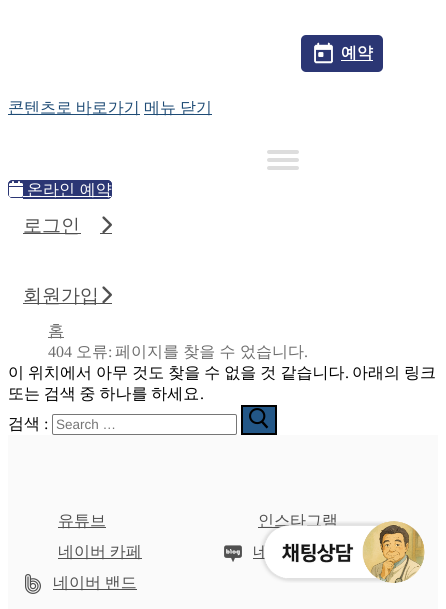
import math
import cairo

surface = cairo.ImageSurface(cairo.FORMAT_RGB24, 446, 609)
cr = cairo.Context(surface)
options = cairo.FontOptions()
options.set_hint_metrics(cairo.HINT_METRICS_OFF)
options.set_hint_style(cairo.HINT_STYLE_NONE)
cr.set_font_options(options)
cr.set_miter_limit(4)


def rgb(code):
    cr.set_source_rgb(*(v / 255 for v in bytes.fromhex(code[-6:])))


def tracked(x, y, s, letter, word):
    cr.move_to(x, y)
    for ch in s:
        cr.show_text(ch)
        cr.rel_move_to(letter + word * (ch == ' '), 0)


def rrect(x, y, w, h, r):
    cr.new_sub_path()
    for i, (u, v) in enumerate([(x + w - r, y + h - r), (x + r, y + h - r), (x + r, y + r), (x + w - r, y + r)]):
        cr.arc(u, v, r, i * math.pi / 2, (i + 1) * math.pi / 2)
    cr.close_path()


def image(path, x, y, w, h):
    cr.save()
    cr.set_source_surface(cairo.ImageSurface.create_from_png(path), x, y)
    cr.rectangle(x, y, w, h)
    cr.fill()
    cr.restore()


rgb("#ffffff")
cr.paint()
rgb("#2b3674")
rrect(301, 35, 82, 37, 5)
cr.fill()
image("img/1.png", 314, 42, 19, 22)
for x, y, w, h, color in [
    (341, 60, 32, 1, "#ffffff"),
    (8, 114, 132, 1, "#1e4b75"),
    (144, 114, 68, 1, "#1e4b75"),
]:
    rgb(color)
    cr.rectangle(x, y, w, h)
    cr.fill()
rgb("#dddddd")
rrect(267, 150, 32, 4, 2)
cr.fill()
rrect(267, 158, 32, 4, 2)
cr.fill()
rrect(267, 166, 32, 4, 2)
cr.fill()
rgb("#2b3674")
cr.new_path()
cr.move_to(13, 180)
cr.line_to(23, 180)
cr.line_to(23, 198)
cr.line_to(13, 198)
cr.curve_to(10, 198, 8, 196, 8, 193)
cr.line_to(8, 185)
cr.curve_to(8, 182, 10, 180, 13, 180)
cr.close_path()
cr.fill()
cr.set_fill_rule(cairo.FILL_RULE_EVEN_ODD)
cr.new_path()
cr.move_to(13, 180)
cr.line_to(23, 180)
cr.line_to(23, 198)
cr.line_to(13, 198)
cr.curve_to(10, 198, 8, 196, 8, 193)
cr.line_to(8, 185)
cr.curve_to(8, 182, 10, 180, 13, 180)
cr.close_path()
cr.move_to(13, 181)
cr.line_to(23, 181)
cr.line_to(23, 197)
cr.line_to(13, 197)
cr.curve_to(11, 197, 9, 195, 9, 193)
cr.line_to(9, 185)
cr.curve_to(9, 183, 11, 181, 13, 181)
cr.close_path()
cr.fill()
cr.new_path()
cr.move_to(23, 180)
cr.line_to(107, 180)
cr.curve_to(110, 180, 112, 182, 112, 185)
cr.line_to(112, 194)
cr.curve_to(112, 197, 110, 199, 107, 199)
cr.line_to(23, 199)
cr.close_path()
cr.fill()
cr.new_path()
cr.move_to(23, 180)
cr.line_to(107, 180)
cr.curve_to(110, 180, 112, 182, 112, 185)
cr.line_to(112, 194)
cr.curve_to(112, 197, 110, 199, 107, 199)
cr.line_to(23, 199)
cr.close_path()
cr.move_to(23, 181)
cr.line_to(107, 181)
cr.curve_to(109, 181, 111, 183, 111, 185)
cr.line_to(111, 194)
cr.curve_to(111, 196, 109, 198, 107, 198)
cr.line_to(23, 198)
cr.close_path()
cr.fill()
image("img/2.png", 9, 181, 14, 16)
rgb("#ffffff")
cr.rectangle(23, 196, 88, 1)
cr.fill()
rgb("#505050")
cr.rectangle(23, 233, 58, 1)
cr.fill()
image("img/3.png", 102, 216, 10, 17)
cr.rectangle(100, 233, 12, 1)
cr.fill()
cr.rectangle(23, 303, 89, 1)
cr.fill()
image("img/3.png", 102, 286, 10, 17)
rgb("#6d6d6d")
cr.rectangle(48, 337, 16, 1)
cr.fill()
rrect(52.5, 414.5, 184, 20, 1.5)
rgb("#767676")
cr.set_line_width(1)
cr.stroke()
rgb("#235787")
cr.rectangle(242, 406, 34, 28)
cr.fill_preserve()
rgb("#000000")
cr.set_line_width(2)
cr.stroke()
image("img/4.png", 249, 408, 20, 21)
for x, y, w, h, color in [
    (8, 435, 430, 174, "#fafafa"),
    (58, 527, 48, 1, "#505050"),
    (258, 527, 24, 1, "#505050"),
    (58, 558, 84, 1, "#505050"),
]:
    rgb(color)
    cr.rectangle(x, y, w, h)
    cr.fill()
image("img/5.png", 224, 545, 18, 17)
cr.rectangle(253, 558, 12, 1)
cr.fill()
image("img/6.png", 25, 574, 16, 20)
cr.rectangle(53, 589, 84, 1)
cr.fill()
cr.select_font_face("WenQuanYi Zen Hei", cairo.FONT_SLANT_NORMAL, cairo.FONT_WEIGHT_BOLD)
cr.set_font_size(16)
rgb("#ffffff")
cr.move_to(341, 58)
cr.show_text("예약")
cr.select_font_face("WenQuanYi Zen Hei Medium")
rgb("#1e4b75")
tracked(8, 113, "콘텐츠로 바로가기", 0, -1)
cr.move_to(144, 113)
cr.show_text("메뉴")
cr.move_to(180, 113)
cr.show_text("닫기")
rgb("#ffffff")
cr.move_to(27, 195)
cr.show_text("온라인 예약")
cr.set_font_size(19)
rgb("#505050")
cr.move_to(23, 232)
cr.show_text("로그인")
cr.move_to(23, 302)
cr.show_text("회원가입")
cr.set_font_size(16)
rgb("#6d6d6d")
cr.move_to(48, 336)
cr.show_text("홈")
cr.select_font_face("Liberation Serif")
cr.move_to(48, 357)
cr.show_text("404")
cr.select_font_face("WenQuanYi Zen Hei Medium")
cr.move_to(76, 357)
cr.show_text("오류")
cr.select_font_face("Liberation Serif")
cr.move_to(108, 357)
cr.show_text(":")
cr.select_font_face("WenQuanYi Zen Hei Medium")
tracked(115, 357, "페이지를 찾을 수 었습니다", 0, -0.5)
cr.select_font_face("Liberation Serif")
cr.move_to(304, 357)
cr.show_text(".")
cr.select_font_face("WenQuanYi Zen Hei Medium")
rgb("#000000")
tracked(8, 378, "이 위치에서 아무 것도 찾을 수 없을 것 같습니다", 0, -0.75)
cr.select_font_face("Liberation Serif")
cr.move_to(345, 378)
cr.show_text(".")
cr.select_font_face("WenQuanYi Zen Hei Medium")
tracked(352, 378, "아래의 링크", 0, -0.75)
tracked(8, 399, "또는 검색 중 하나를 하세요", 0, -1)
cr.select_font_face("Liberation Serif")
cr.move_to(200, 399)
cr.show_text(".")
cr.select_font_face("WenQuanYi Zen Hei Medium")
cr.move_to(8, 429)
cr.show_text("검색")
cr.select_font_face("Liberation Serif")
cr.move_to(44, 429)
cr.show_text(":")
cr.select_font_face("Liberation Sans")
cr.set_font_size(13.5)
rgb("#757575")
cr.move_to(56, 429)
cr.show_text("Search …")
cr.select_font_face("WenQuanYi Zen Hei Medium")
cr.set_font_size(16)
rgb("#505050")
cr.move_to(58, 526)
cr.show_text("유튜브")
cr.move_to(258, 526)
cr.show_text("인스타그램")
for x, y, s in [
    (58, 557, "네이버 카페"),
    (253, 557, "네"),
    (53, 588, "네이버 밴드"),
]:
    tracked(x, y, s, 0, -1)
image("img/7.png", 260, 521, 165, 62)
surface.write_to_png("page.png")
